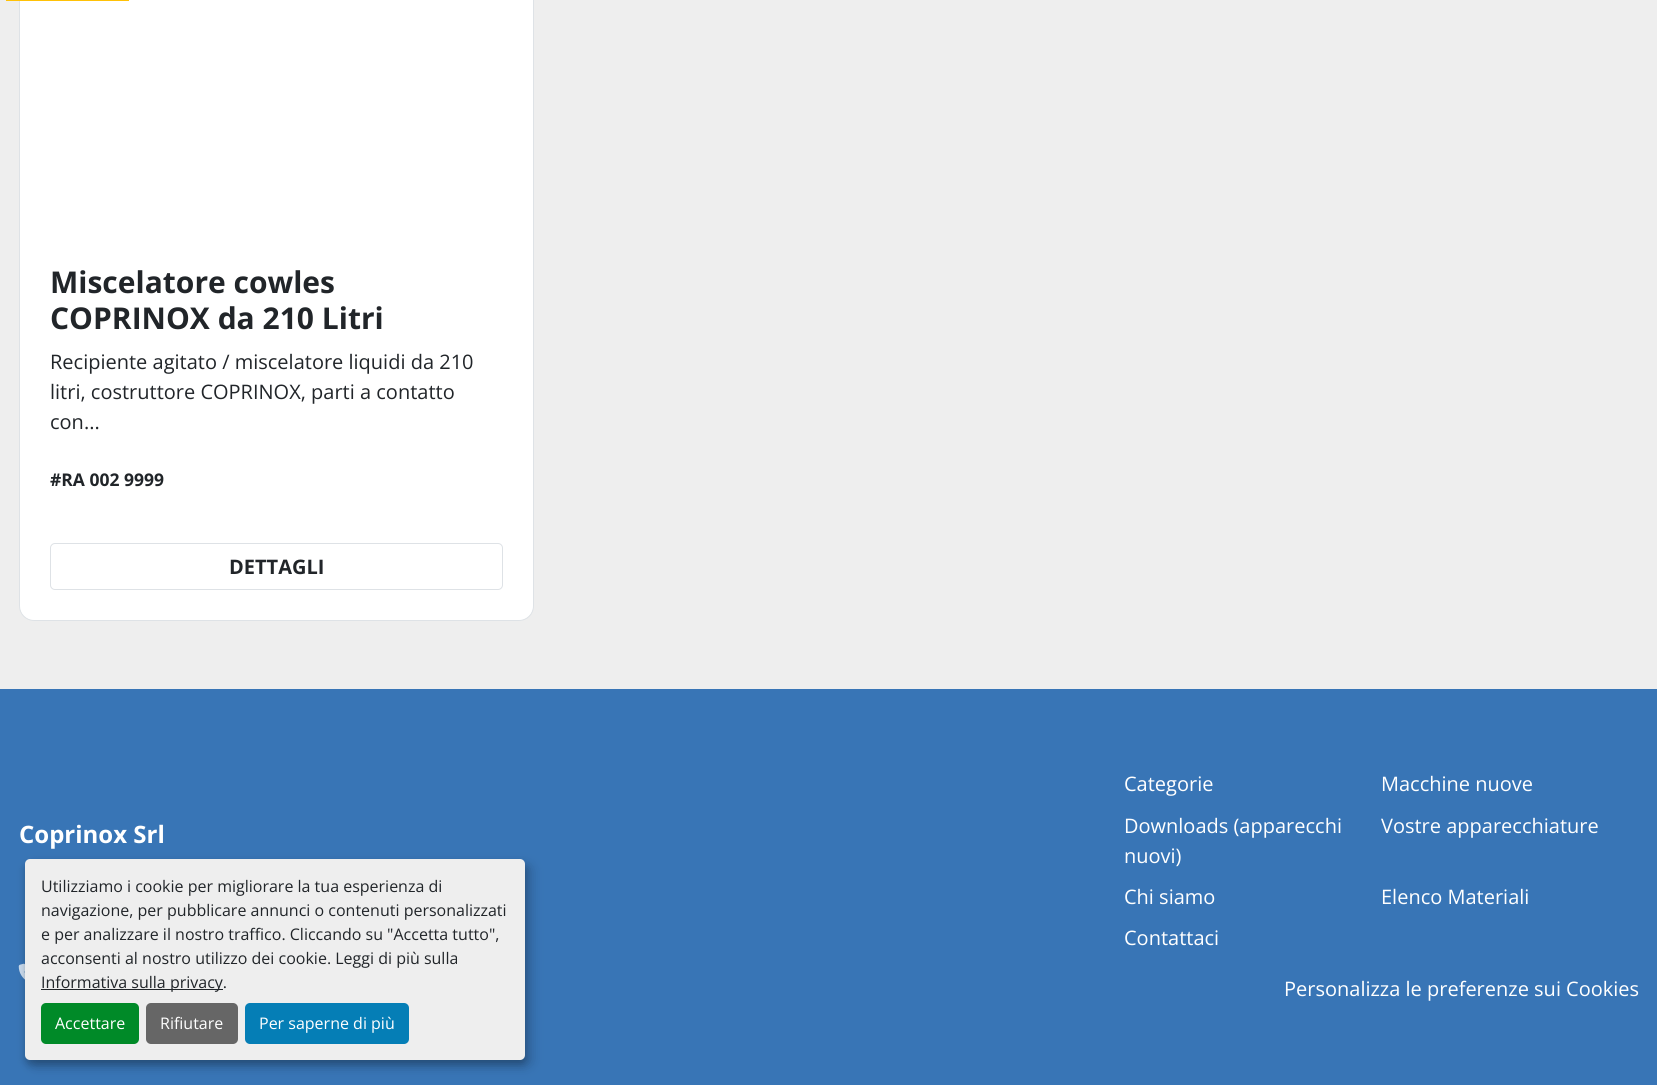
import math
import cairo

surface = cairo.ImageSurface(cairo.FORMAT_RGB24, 1657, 1085)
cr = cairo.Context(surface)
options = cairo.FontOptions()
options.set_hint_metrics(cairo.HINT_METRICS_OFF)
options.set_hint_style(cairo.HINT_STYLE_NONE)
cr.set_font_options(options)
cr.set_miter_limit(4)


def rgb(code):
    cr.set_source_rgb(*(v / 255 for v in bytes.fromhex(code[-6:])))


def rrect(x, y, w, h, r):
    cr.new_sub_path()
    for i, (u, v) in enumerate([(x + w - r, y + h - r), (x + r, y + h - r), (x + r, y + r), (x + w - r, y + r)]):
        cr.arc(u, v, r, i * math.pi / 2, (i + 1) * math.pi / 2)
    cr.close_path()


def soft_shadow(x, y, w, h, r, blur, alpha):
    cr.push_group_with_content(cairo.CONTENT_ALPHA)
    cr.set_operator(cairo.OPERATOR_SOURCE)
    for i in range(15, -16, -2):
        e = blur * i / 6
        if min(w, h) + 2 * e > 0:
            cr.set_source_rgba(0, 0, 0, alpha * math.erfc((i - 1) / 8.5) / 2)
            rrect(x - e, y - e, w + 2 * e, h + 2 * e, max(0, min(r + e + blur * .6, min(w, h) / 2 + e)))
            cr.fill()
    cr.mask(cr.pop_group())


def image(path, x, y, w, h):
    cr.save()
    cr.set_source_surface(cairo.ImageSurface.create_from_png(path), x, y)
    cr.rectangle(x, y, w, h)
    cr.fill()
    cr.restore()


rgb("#eeeeee")
cr.paint()
rgb("#ffffff")
rrect(19.5, -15.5, 514, 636, 14.5)
cr.fill_preserve()
rgb("#dee2e6")
cr.set_line_width(1)
cr.stroke()
rgb("#ffc107")
cr.rectangle(6, 0, 123, 1)
cr.fill()
rrect(50.5, 543.5, 452, 46, 4.5)
rgb("#dee2e6")
cr.stroke()
rgb("#3875b6")
cr.rectangle(0, 689, 1657, 396)
cr.fill()
image("img/1.png", 18, 963, 7, 17)
rgb("#000000")
soft_shadow(31, 865, 500, 201, 5, 6, 0.19)
soft_shadow(25, 864, 500, 201, 5, 4, 0.2)
rgb("#eeeeee")
rrect(25, 859, 500, 201, 5)
cr.fill()
rgb("#212529")
cr.rectangle(41, 989, 182, 1)
cr.fill()
rgb("#008a28")
rrect(41, 1003, 98, 41, 5)
cr.fill()
rgb("#666666")
rrect(146, 1003, 92, 41, 5)
cr.fill()
rgb("#057eb6")
rrect(245, 1003, 164, 41, 5)
cr.fill()
cr.select_font_face("Open Sans", cairo.FONT_SLANT_NORMAL, cairo.FONT_WEIGHT_BOLD)
cr.set_font_size(30)
rgb("#212529")
cr.move_to(50, 293)
cr.show_text("Miscelatore cowles")
cr.move_to(50, 329)
cr.show_text("COPRINOX da 210 Litri")
cr.select_font_face("Open Sans")
cr.set_font_size(20)
for x, y, s in [
    (50, 369, "Recipiente agitato / miscelatore liquidi da 210"),
    (50, 399, "litri, costruttore COPRINOX, parti a contatto"),
    (50, 429, "con..."),
]:
    cr.move_to(x, y)
    cr.show_text(s)
cr.select_font_face("Open Sans", cairo.FONT_SLANT_NORMAL, cairo.FONT_WEIGHT_BOLD)
cr.set_font_size(17.5)
cr.move_to(50, 486)
cr.show_text("#RA 002 9999")
cr.set_font_size(20)
cr.move_to(229, 574)
cr.show_text("DETTAGLI")
cr.set_font_size(24)
rgb("#ffffff")
cr.move_to(19, 843)
cr.show_text("Coprinox Srl")
cr.select_font_face("Open Sans")
cr.set_font_size(20)
for x, y, s in [
    (1124, 791, "Categorie"),
    (1381, 791, "Macchine nuove"),
    (1124, 833, "Downloads (apparecchi"),
    (1124, 863, "nuovi)"),
    (1381, 833, "Vostre apparecchiature"),
    (1124, 904, "Chi siamo"),
    (1381, 904, "Elenco Materiali"),
    (1124, 945, "Contattaci"),
    (1284, 996, "Personalizza le preferenze sui Cookies"),
]:
    cr.move_to(x, y)
    cr.show_text(s)
cr.set_font_size(16)
rgb("#212529")
for x, y, s in [
    (41, 892, "Utilizziamo i cookie per migliorare la tua esperienza di"),
    (41, 916, "navigazione, per pubblicare annunci o contenuti personalizzati"),
    (41, 940, "e per analizzare il nostro traffico. Cliccando su \"Accetta tutto\","),
    (41, 964, "acconsenti al nostro utilizzo dei cookie. Leggi di più sulla"),
    (41, 988, "Informativa sulla privacy."),
]:
    cr.move_to(x, y)
    cr.show_text(s)
rgb("#ffffff")
for x, y, s in [
    (55, 1029, "Accettare"),
    (160, 1029, "Rifiutare"),
    (259, 1029, "Per saperne di più"),
]:
    cr.move_to(x, y)
    cr.show_text(s)
surface.write_to_png("page.png")
